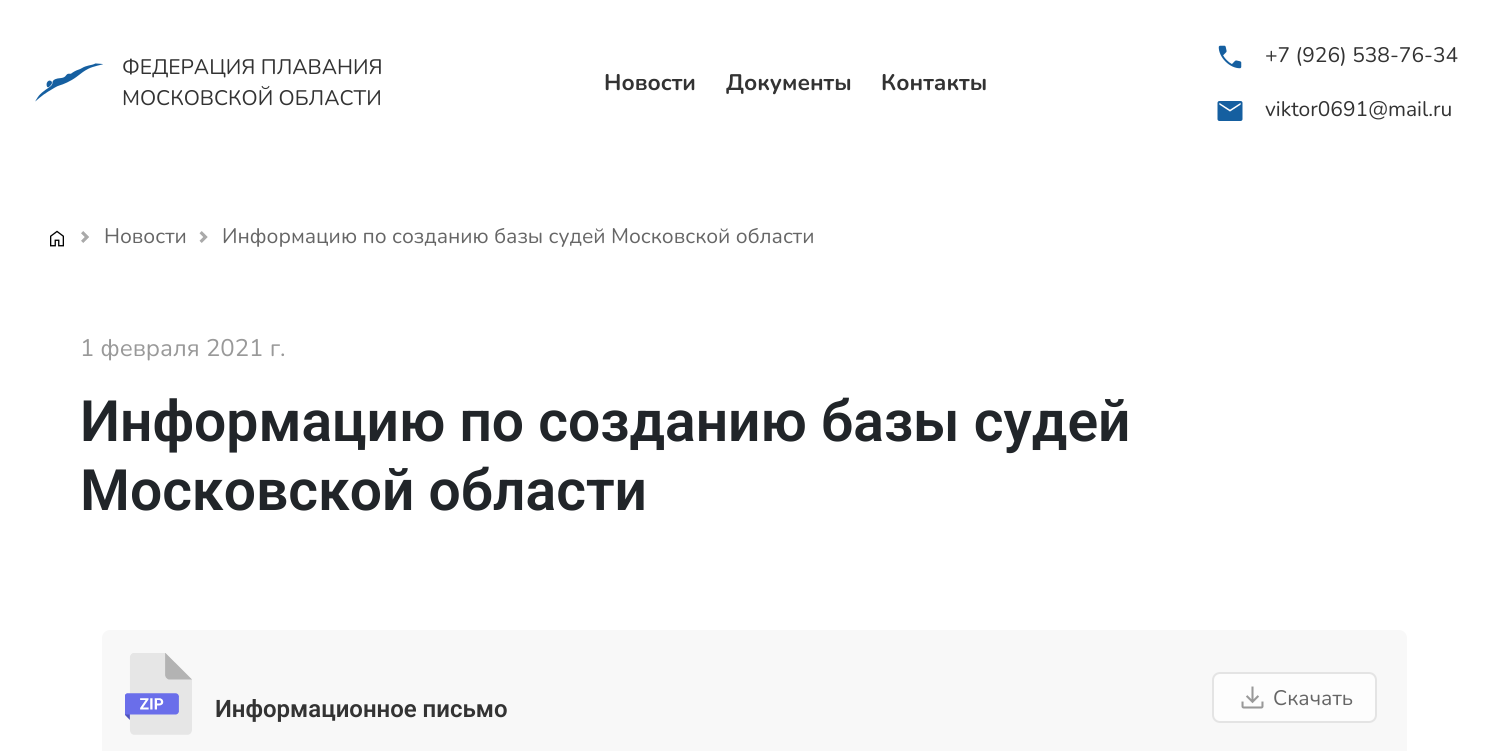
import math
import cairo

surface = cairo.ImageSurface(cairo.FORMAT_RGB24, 1509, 751)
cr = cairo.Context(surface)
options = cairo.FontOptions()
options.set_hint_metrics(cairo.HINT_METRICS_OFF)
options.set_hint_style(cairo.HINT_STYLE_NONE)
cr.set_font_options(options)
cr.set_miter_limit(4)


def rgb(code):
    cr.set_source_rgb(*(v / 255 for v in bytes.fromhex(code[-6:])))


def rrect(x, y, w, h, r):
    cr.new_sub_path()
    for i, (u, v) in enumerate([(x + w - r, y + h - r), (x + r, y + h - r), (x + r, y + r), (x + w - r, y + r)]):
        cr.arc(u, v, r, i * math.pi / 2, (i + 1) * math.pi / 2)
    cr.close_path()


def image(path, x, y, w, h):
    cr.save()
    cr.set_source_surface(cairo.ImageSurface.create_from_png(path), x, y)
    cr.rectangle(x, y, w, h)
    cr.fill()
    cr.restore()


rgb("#ffffff")
cr.paint()
image("img/1.png", 35, 63, 68, 39)
image("img/2.png", 1218, 45, 24, 24)
image("img/3.png", 1217, 101, 26, 20)
image("img/4.png", 50, 230, 14, 17)
image("img/5.png", 81, 231, 8, 12)
image("img/6.png", 199, 231, 9, 12)
rgb("#f8f8f8")
cr.new_path()
cr.move_to(110, 630)
cr.line_to(1399, 630)
cr.curve_to(1403.5, 630, 1407, 633.5, 1407, 638)
cr.line_to(1407, 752)
cr.line_to(102, 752)
cr.line_to(102, 638)
cr.curve_to(102, 633.5, 105.5, 630, 110, 630)
cr.close_path()
cr.fill()
image("img/7.png", 125, 653, 67, 82)
rgb("#fdfdfd")
rrect(1213, 673, 163, 49, 7)
cr.fill_preserve()
rgb("#e4e4e4")
cr.stroke()
image("img/8.png", 1241, 686, 23, 23)
cr.select_font_face("Nunito")
cr.set_font_size(21)
rgb("#333333")
cr.move_to(122, 74)
cr.show_text("ФЕДЕРАЦИЯ ПЛАВАНИЯ")
cr.move_to(122, 105)
cr.show_text("МОСКОВСКОЙ ОБЛАСТИ")
cr.select_font_face("Nunito", cairo.FONT_SLANT_NORMAL, cairo.FONT_WEIGHT_BOLD)
cr.set_font_size(22.5)
for x, y, s in [
    (604, 90, "Новости"),
    (726, 90, "Документы"),
    (881, 90, "Контакты"),
]:
    cr.move_to(x, y)
    cr.show_text(s)
cr.select_font_face("Nunito")
cr.set_font_size(21)
cr.move_to(1265, 62)
cr.show_text("+7 (926) 538-76-34")
cr.move_to(1265, 116)
cr.show_text("viktor0691@mail.ru")
rgb("#666666")
cr.move_to(104, 243)
cr.show_text("Новости")
cr.move_to(222, 243)
cr.show_text("Информацию по созданию базы судей Московской области")
cr.set_font_size(24)
rgb("#999999")
cr.move_to(80, 356)
cr.show_text("1 февраля 2021 г.")
cr.select_font_face("Roboto SemiBold")
cr.set_font_size(57)
rgb("#212529")
cr.move_to(80, 441)
cr.show_text("Информацию по созданию базы судей")
cr.move_to(80, 510)
cr.show_text("Московской области")
cr.set_font_size(24)
rgb("#333333")
cr.move_to(215, 717)
cr.show_text("Информационное письмо")
cr.select_font_face("Nunito")
cr.set_font_size(21)
rgb("#666666")
cr.move_to(1273, 705)
cr.show_text("Скачать")
surface.write_to_png("page.png")
